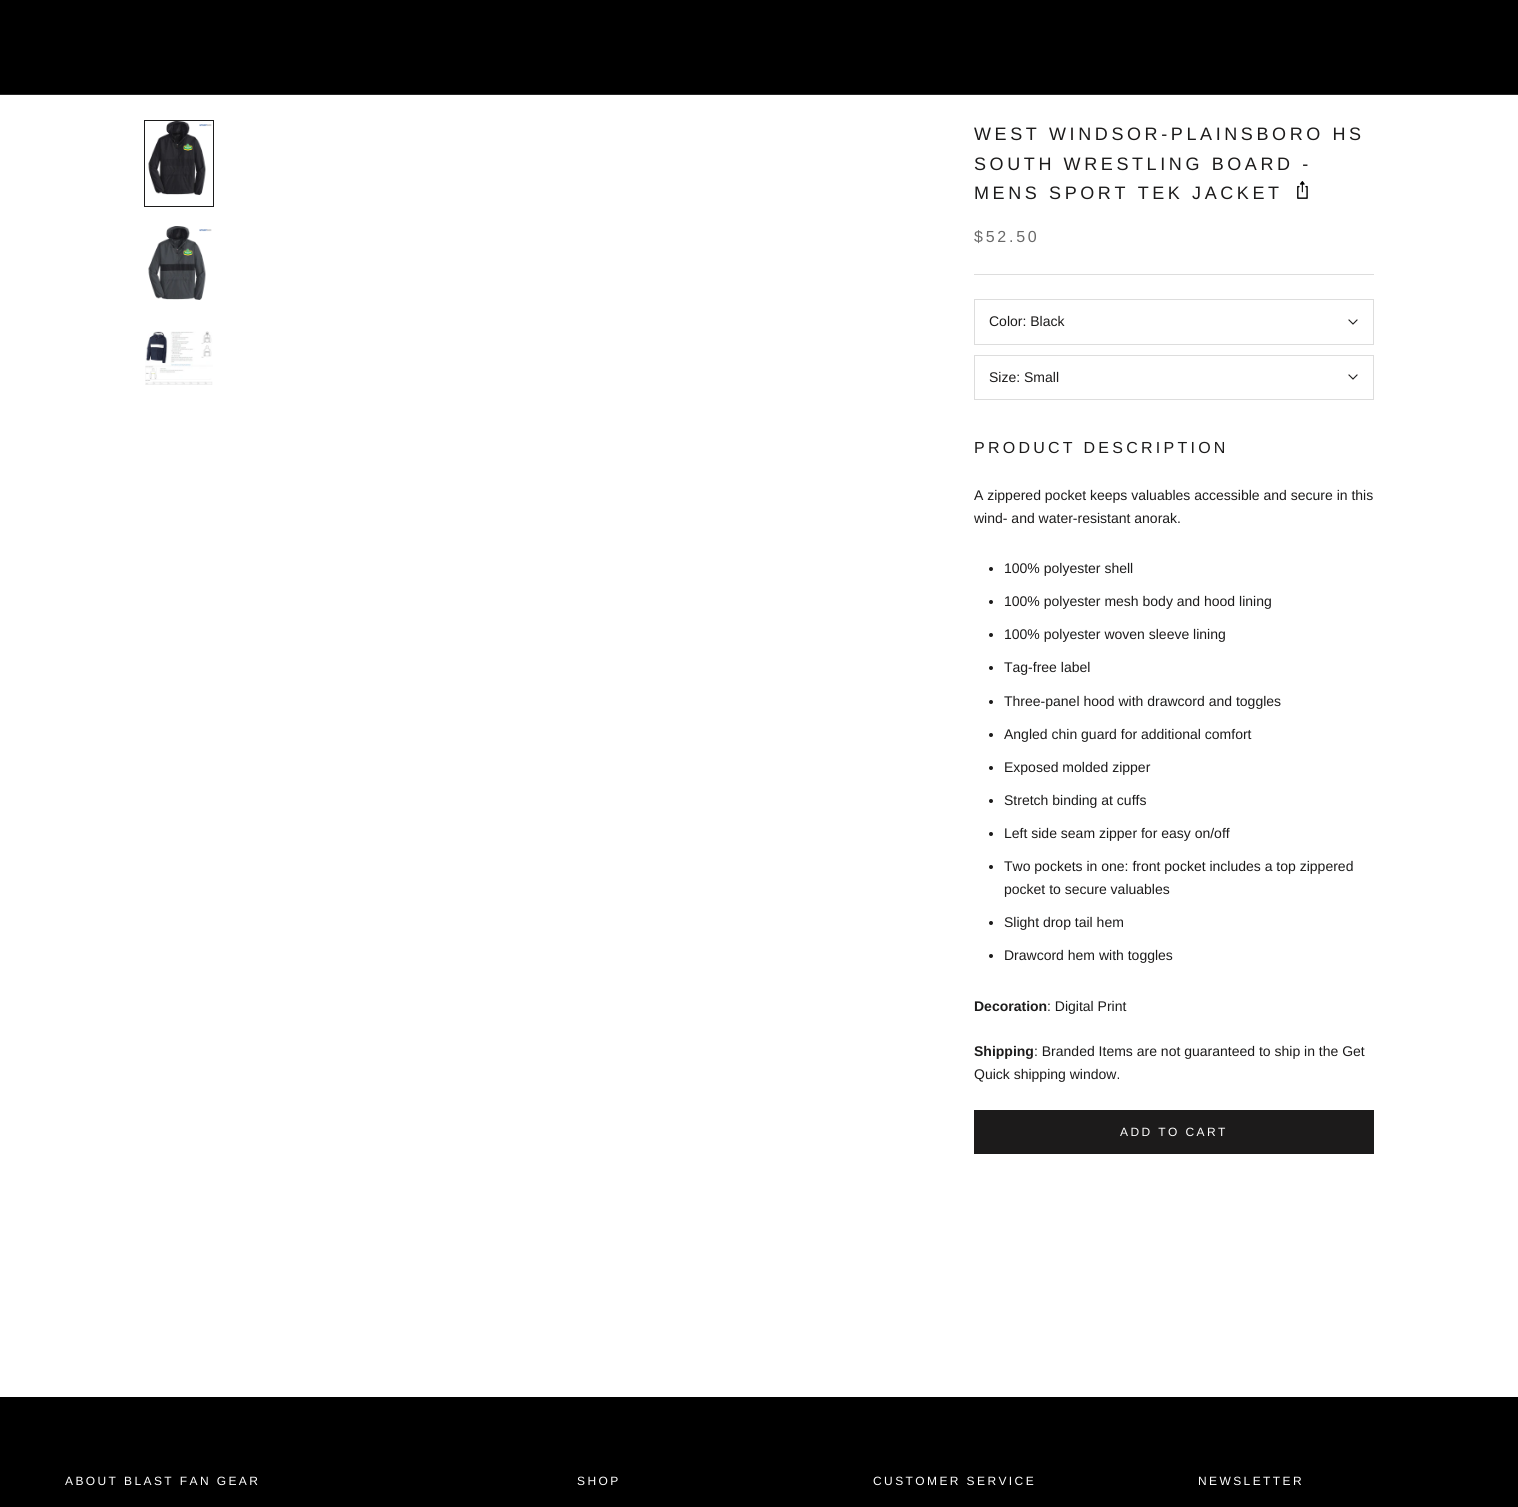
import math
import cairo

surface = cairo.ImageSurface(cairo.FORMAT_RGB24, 1518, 1507)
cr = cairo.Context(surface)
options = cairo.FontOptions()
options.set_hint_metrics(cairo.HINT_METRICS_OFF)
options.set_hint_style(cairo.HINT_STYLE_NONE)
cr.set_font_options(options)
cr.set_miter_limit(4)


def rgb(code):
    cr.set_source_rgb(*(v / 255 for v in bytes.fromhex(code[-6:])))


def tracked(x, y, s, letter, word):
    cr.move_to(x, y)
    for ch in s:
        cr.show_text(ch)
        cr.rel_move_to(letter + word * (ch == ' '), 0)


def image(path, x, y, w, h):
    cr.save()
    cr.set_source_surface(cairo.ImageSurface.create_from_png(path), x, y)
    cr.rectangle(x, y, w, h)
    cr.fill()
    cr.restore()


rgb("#ffffff")
cr.paint()
rgb("#000000")
cr.rectangle(0, 0, 1518, 94)
cr.fill()
rgb("#262626")
cr.rectangle(0, 94, 1518, 1)
cr.fill()
cr.rectangle(144.5, 120.5, 69, 86)
rgb("#1c1b1b")
cr.set_line_width(1)
cr.stroke()
image("img/1.png", 148, 121, 64, 75)
image("img/2.png", 148, 226, 64, 74)
image("img/3.png", 145, 331, 68, 54)
rgb("#dddddd")
cr.rectangle(974, 274, 400, 1)
cr.fill()
image("img/4.png", 1297, 181, 11, 18)
cr.rectangle(974.5, 299.5, 399, 45)
cr.stroke()
cr.new_path()
cr.move_to(1357, 320)
cr.line_to(1353, 324)
cr.line_to(1349, 320)
rgb("#1c1b1b")
cr.set_line_width(1.1)
cr.set_line_cap(cairo.LINE_CAP_SQUARE)
cr.stroke()
cr.rectangle(974.5, 355.5, 399, 44)
rgb("#dddddd")
cr.set_line_width(1)
cr.set_line_cap(cairo.LINE_CAP_BUTT)
cr.stroke()
cr.new_path()
cr.move_to(1357, 375)
cr.line_to(1353, 379)
cr.line_to(1349, 375)
rgb("#1c1b1b")
cr.set_line_width(1.1)
cr.set_line_cap(cairo.LINE_CAP_SQUARE)
cr.stroke()
cr.arc(991, 569, 2, 0, 2 * math.pi)
cr.fill()
cr.arc(991, 602, 2, 0, 2 * math.pi)
cr.fill()
cr.arc(991, 635, 2, 0, 2 * math.pi)
cr.fill()
cr.arc(991, 668, 2, 0, 2 * math.pi)
cr.fill()
cr.arc(991, 702, 2, 0, 2 * math.pi)
cr.fill()
cr.arc(991, 735, 2, 0, 2 * math.pi)
cr.fill()
cr.arc(991, 768, 2, 0, 2 * math.pi)
cr.fill()
cr.arc(991, 801, 2, 0, 2 * math.pi)
cr.fill()
cr.arc(991, 834, 2, 0, 2 * math.pi)
cr.fill()
cr.arc(991, 867, 2, 0, 2 * math.pi)
cr.fill()
cr.arc(991, 923, 2, 0, 2 * math.pi)
cr.fill()
cr.arc(991, 956, 2, 0, 2 * math.pi)
cr.fill()
cr.rectangle(974.5, 1110.5, 399, 43)
cr.set_line_width(1)
cr.set_line_cap(cairo.LINE_CAP_BUTT)
cr.stroke()
cr.rectangle(975, 1111, 398, 42)
cr.fill()
rgb("#000000")
cr.rectangle(0, 1397, 1518, 110)
cr.fill()
cr.select_font_face("Liberation Sans")
cr.set_font_size(18)
rgb("#1c1b1b")
for x, y, s in [
    (974, 140, "WEST WINDSOR-PLAINSBORO HS"),
    (974, 170, "SOUTH WRESTLING BOARD -"),
    (974, 199, "MENS SPORT TEK JACKET"),
]:
    tracked(x, y, s, 3.6, 0)
cr.set_font_size(16)
rgb("#6a6a6a")
tracked(974, 242, "$52.50", 2.75, 0)
cr.set_font_size(14)
rgb("#1c1b1b")
cr.move_to(989, 326)
cr.show_text("Color: Black")
cr.move_to(989, 382)
cr.show_text("Size: Small")
cr.set_font_size(16)
tracked(974, 453, "PRODUCT DESCRIPTION", 3.25, 0)
cr.set_font_size(14)
for x, y, s in [
    (974, 500, "A zippered pocket keeps valuables accessible and secure in this"),
    (974, 523, "wind- and water-resistant anorak."),
    (1004, 573, "100% polyester shell"),
    (1004, 606, "100% polyester mesh body and hood lining"),
    (1004, 639, "100% polyester woven sleeve lining"),
    (1004, 672, "Tag-free label"),
    (1004, 706, "Three-panel hood with drawcord and toggles"),
    (1004, 739, "Angled chin guard for additional comfort"),
    (1004, 772, "Exposed molded zipper"),
    (1004, 805, "Stretch binding at cuffs"),
    (1004, 838, "Left side seam zipper for easy on/off"),
    (1004, 871, "Two pockets in one: front pocket includes a top zippered"),
    (1004, 894, "pocket to secure valuables"),
    (1004, 927, "Slight drop tail hem"),
    (1004, 960, "Drawcord hem with toggles"),
]:
    cr.move_to(x, y)
    cr.show_text(s)
cr.select_font_face("Liberation Sans", cairo.FONT_SLANT_NORMAL, cairo.FONT_WEIGHT_BOLD)
cr.move_to(974, 1011)
cr.show_text("Decoration")
cr.select_font_face("Liberation Sans")
cr.move_to(1047, 1011)
cr.show_text(": Digital Print")
cr.select_font_face("Liberation Sans", cairo.FONT_SLANT_NORMAL, cairo.FONT_WEIGHT_BOLD)
cr.move_to(974, 1056)
cr.show_text("Shipping")
cr.select_font_face("Liberation Sans")
cr.move_to(1034, 1056)
cr.show_text(": Branded Items are not guaranteed to ship in the Get")
cr.move_to(974, 1079)
cr.show_text("Quick shipping window.")
cr.set_font_size(12)
rgb("#ffffff")
for x, y, s in [
    (1120, 1136, "ADD TO CART"),
    (65, 1485, "ABOUT BLAST FAN GEAR"),
    (577, 1485, "SHOP"),
    (873, 1485, "CUSTOMER SERVICE"),
    (1198, 1485, "NEWSLETTER"),
]:
    tracked(x, y, s, 2.4, 0)
surface.write_to_png("page.png")
